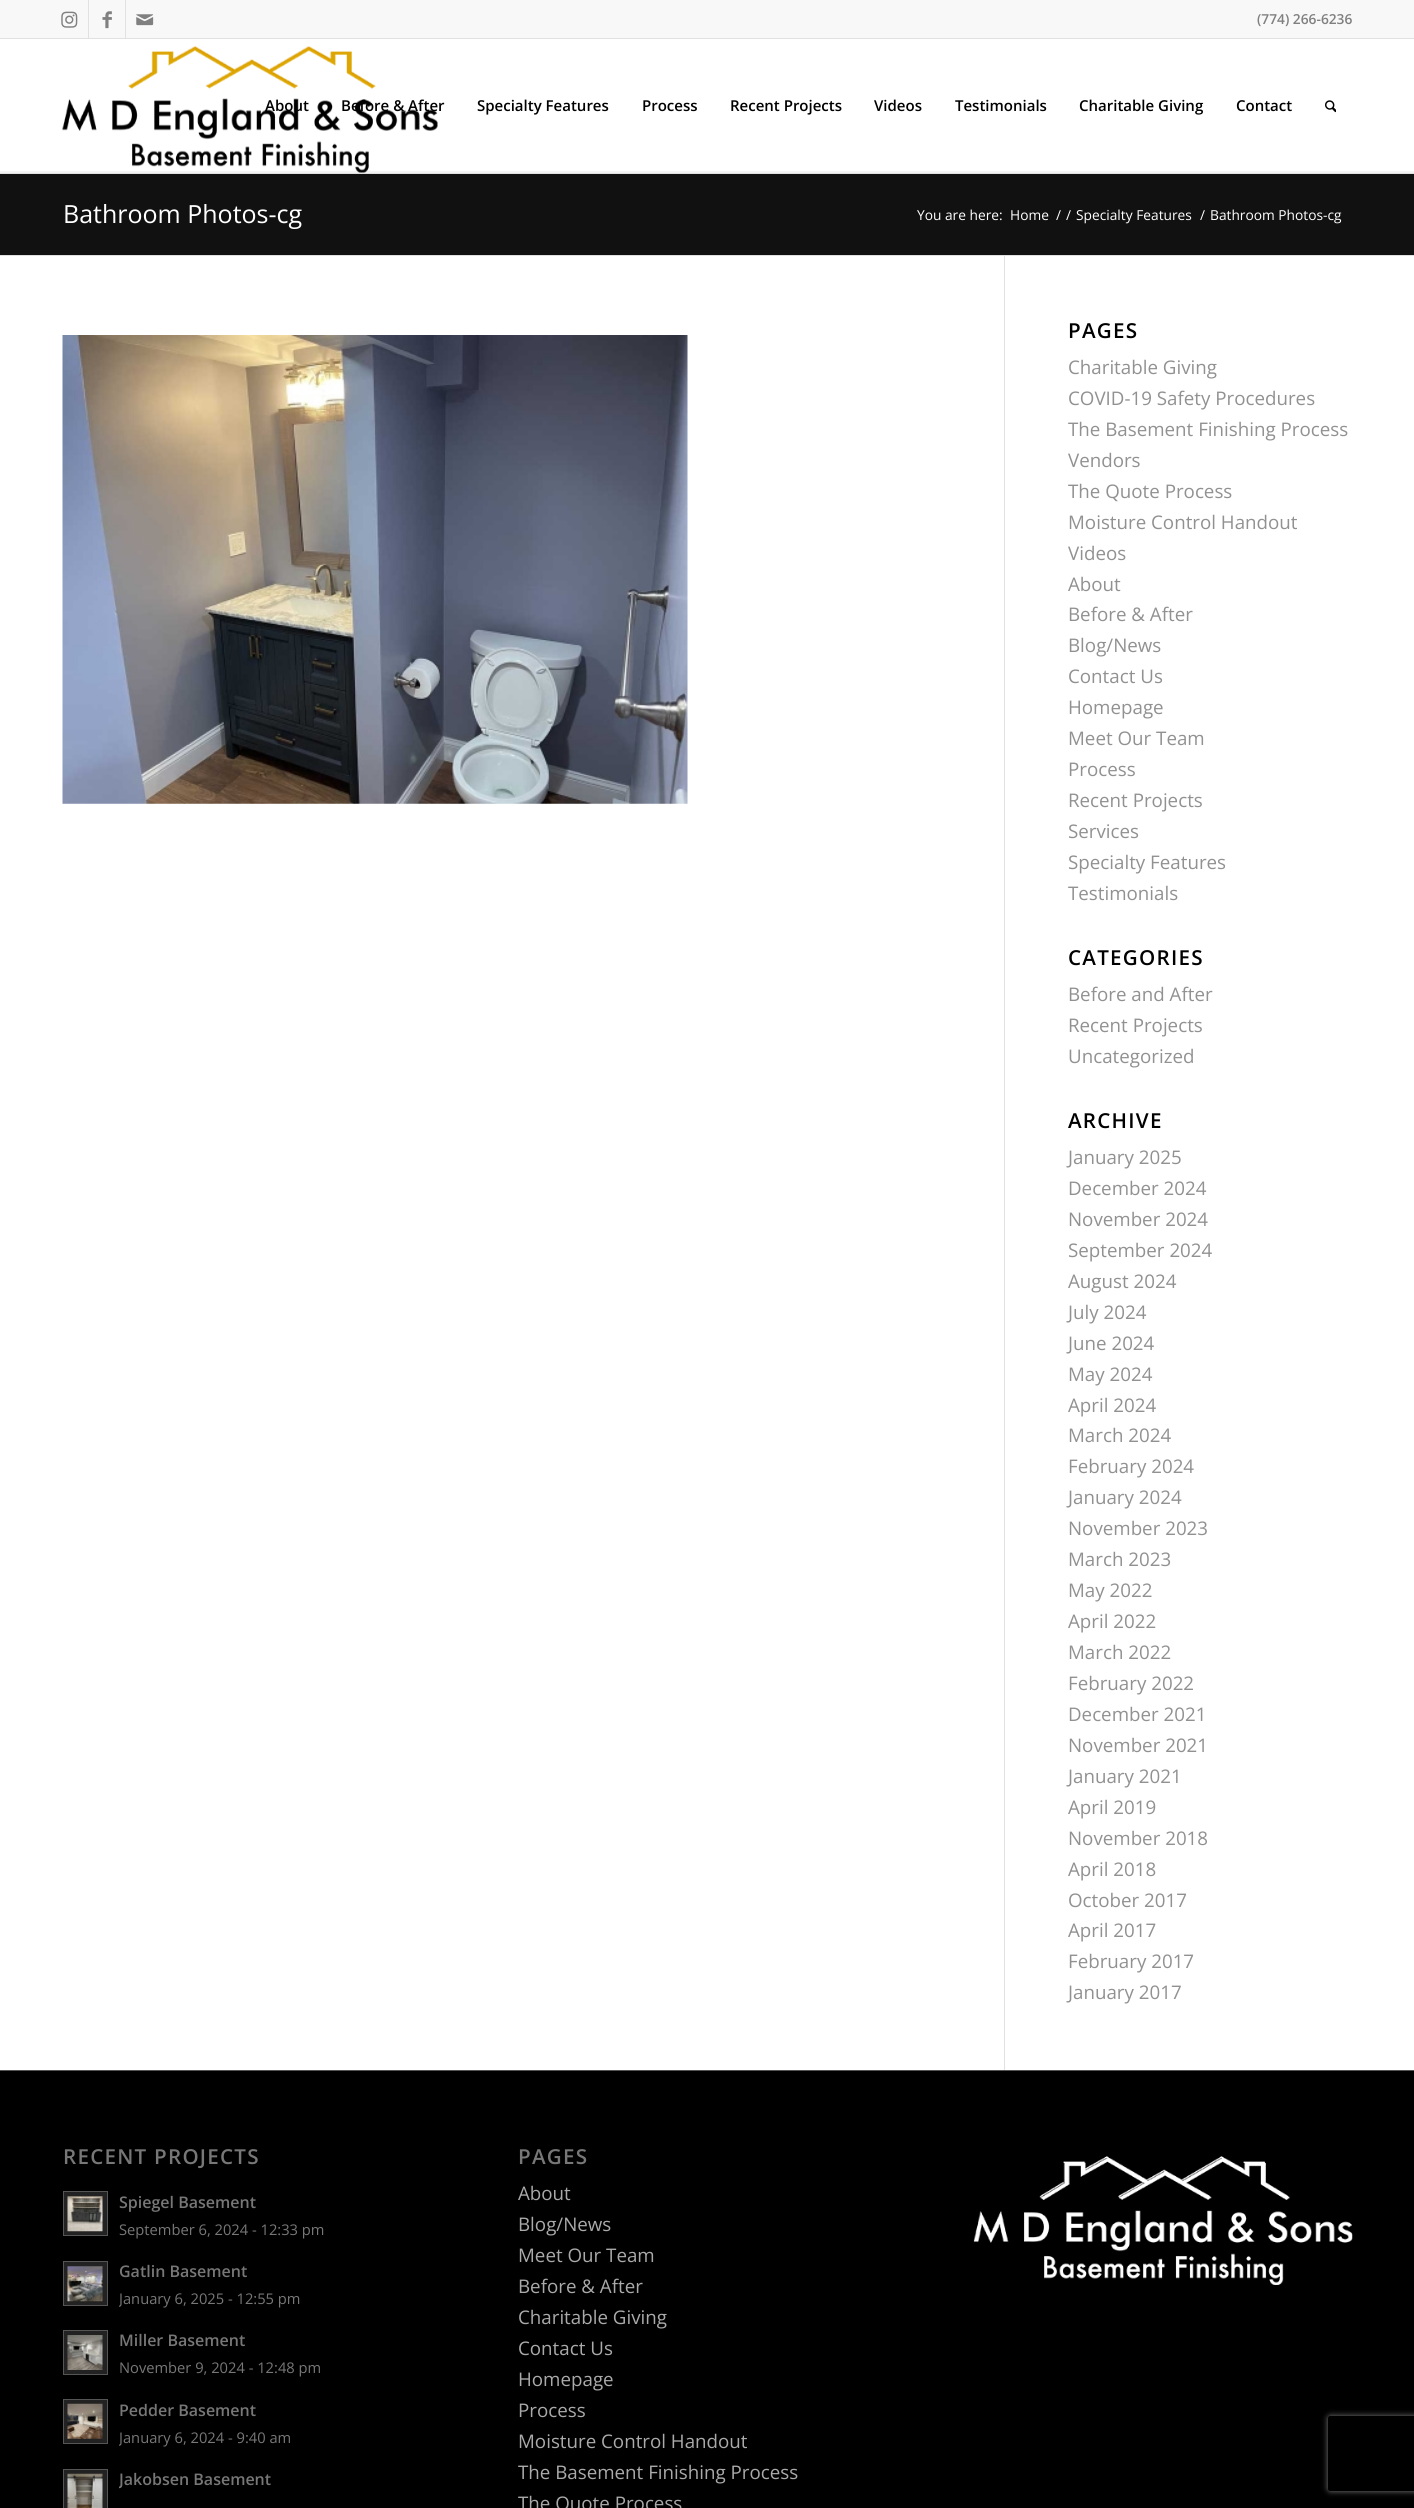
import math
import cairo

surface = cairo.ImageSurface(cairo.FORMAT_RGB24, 1414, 2508)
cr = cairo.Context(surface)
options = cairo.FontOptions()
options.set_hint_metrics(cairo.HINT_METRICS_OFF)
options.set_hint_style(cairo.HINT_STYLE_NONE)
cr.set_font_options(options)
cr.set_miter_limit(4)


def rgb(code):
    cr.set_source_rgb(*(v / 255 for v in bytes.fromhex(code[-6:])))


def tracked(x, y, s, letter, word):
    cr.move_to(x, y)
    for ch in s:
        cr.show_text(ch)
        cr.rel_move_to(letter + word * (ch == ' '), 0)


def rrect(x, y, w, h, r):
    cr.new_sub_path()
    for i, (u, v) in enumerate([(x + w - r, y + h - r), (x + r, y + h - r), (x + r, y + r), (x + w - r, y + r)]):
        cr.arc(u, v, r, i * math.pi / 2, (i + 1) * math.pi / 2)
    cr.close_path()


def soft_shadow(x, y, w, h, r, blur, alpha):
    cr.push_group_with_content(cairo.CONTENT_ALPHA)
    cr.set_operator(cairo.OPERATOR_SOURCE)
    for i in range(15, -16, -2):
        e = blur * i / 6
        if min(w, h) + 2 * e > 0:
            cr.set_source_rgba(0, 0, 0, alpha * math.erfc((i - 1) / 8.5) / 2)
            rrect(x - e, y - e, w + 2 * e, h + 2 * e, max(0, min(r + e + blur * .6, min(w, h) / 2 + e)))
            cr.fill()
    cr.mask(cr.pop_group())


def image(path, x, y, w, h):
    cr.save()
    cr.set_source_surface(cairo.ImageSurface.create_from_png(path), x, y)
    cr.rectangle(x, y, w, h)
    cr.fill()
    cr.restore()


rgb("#ffffff")
cr.paint()
for x, y, w, h, color in [
    (0, 0, 1414, 38, "#f8f8f8"),
    (0, 38, 1414, 1, "#e1e1e1"),
    (88, 0, 1, 38, "#e1e1e1"),
]:
    rgb(color)
    cr.rectangle(x, y, w, h)
    cr.fill()
image("img/1.png", 61, 11, 17, 17)
cr.rectangle(125, 0, 1, 38)
cr.fill()
image("img/2.png", 102, 11, 10, 18)
image("img/3.png", 136, 14, 18, 12)
for x, y, w, h, color in [
    (0, 173, 1414, 1, "#e1e1e1"),
    (0, 172, 1414, 1, "#f3f3f3"),
    (0, 171, 1414, 1, "#f5f5f5"),
]:
    rgb(color)
    cr.rectangle(x, y, w, h)
    cr.fill()
image("img/4.png", 62, 45, 376, 128)
image("img/5.png", 1325, 100, 11, 13)
rgb("#111111")
cr.rectangle(0, 174, 1414, 81)
cr.fill()
rgb("#e1e1e1")
cr.rectangle(0, 255, 1414, 1)
cr.fill()
image("img/6.png", 62, 335, 626, 469)
for x, y, w, h, color in [
    (1004, 256, 1, 1814, "#e1e1e1"),
    (0, 2071, 1414, 437, "#000000"),
    (0, 2070, 1414, 1, "#555555"),
]:
    rgb(color)
    cr.rectangle(x, y, w, h)
    cr.fill()
rgb("#222222")
cr.rectangle(63.5, 2191.5, 44, 44)
cr.fill_preserve()
rgb("#555555")
cr.set_line_width(1)
cr.stroke()
image("img/7.png", 67, 2196, 36, 36)
rgb("#222222")
cr.rectangle(63.5, 2261.5, 44, 44)
cr.fill_preserve()
rgb("#555555")
cr.stroke()
image("img/8.png", 67, 2266, 36, 36)
rgb("#222222")
cr.rectangle(63.5, 2330.5, 44, 44)
cr.fill_preserve()
rgb("#555555")
cr.stroke()
image("img/9.png", 67, 2335, 36, 35)
rgb("#222222")
cr.rectangle(63.5, 2399.5, 44, 44)
cr.fill_preserve()
rgb("#555555")
cr.stroke()
image("img/10.png", 67, 2403, 36, 36)
rgb("#222222")
cr.rectangle(63.5, 2469.5, 44, 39)
cr.fill_preserve()
rgb("#555555")
cr.stroke()
image("img/11.png", 67, 2473, 36, 35)
image("img/12.png", 973, 2156, 380, 129)
cr.save()
cr.set_fill_rule(cairo.FILL_RULE_EVEN_ODD)
cr.new_path()
cr.move_to(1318, 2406)
cr.line_to(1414, 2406)
cr.line_to(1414, 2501)
cr.line_to(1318, 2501)
cr.close_path()
cr.move_to(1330.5, 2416)
cr.line_to(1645.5, 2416)
cr.curve_to(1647, 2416, 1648, 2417, 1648, 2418.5)
cr.line_to(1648, 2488.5)
cr.curve_to(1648, 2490, 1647, 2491, 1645.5, 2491)
cr.line_to(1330.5, 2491)
cr.curve_to(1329, 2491, 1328, 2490, 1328, 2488.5)
cr.line_to(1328, 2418.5)
cr.curve_to(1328, 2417, 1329, 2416, 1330.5, 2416)
cr.close_path()
cr.clip()
rgb("#808080")
soft_shadow(1328, 2416, 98, 75, 2.5, 3, 1)
cr.restore()
cr.select_font_face("Open Sans SemiBold")
cr.set_font_size(13.75)
rgb("#808080")
cr.move_to(1257, 24)
cr.show_text("(774) 266-6236")
cr.set_font_size(15)
rgb("#000000")
for x, y, s in [
    (265, 111, "About"),
    (341, 111, "Before & After"),
    (477, 111, "Specialty Features"),
    (642, 111, "Process"),
    (730, 111, "Recent Projects"),
    (874, 111, "Videos"),
    (955, 111, "Testimonials"),
    (1079, 111, "Charitable Giving"),
    (1236, 111, "Contact"),
]:
    cr.move_to(x, y)
    cr.show_text(s)
cr.select_font_face("Open Sans")
cr.set_font_size(25)
rgb("#ffffff")
cr.move_to(63, 223)
cr.show_text("Bathroom Photos-cg")
cr.set_font_size(13.75)
for x, y, s in [
    (917, 220, "You are here:"),
    (1010, 220, "Home"),
    (1056, 220, "/"),
    (1066, 220, "/"),
    (1076, 220, "Specialty Features"),
    (1200, 220, "/"),
    (1210, 220, "Bathroom Photos-cg"),
]:
    cr.move_to(x, y)
    cr.show_text(s)
cr.select_font_face("Open Sans SemiBold")
cr.set_font_size(20.6)
rgb("#000000")
tracked(1068, 338, "PAGES", 1.25, 0)
cr.select_font_face("Open Sans")
cr.set_font_size(18.75)
rgb("#919191")
for x, y, s in [
    (1068, 374, "Charitable Giving"),
    (1068, 405, "COVID-19 Safety Procedures"),
    (1068, 436, "The Basement Finishing Process"),
    (1068, 467, "Vendors"),
    (1068, 498, "The Quote Process"),
    (1068, 529, "Moisture Control Handout"),
    (1068, 560, "Videos"),
    (1068, 591, "About"),
    (1068, 621, "Before & After"),
    (1068, 652, "Blog/News"),
    (1068, 683, "Contact Us"),
    (1068, 714, "Homepage"),
    (1068, 745, "Meet Our Team"),
    (1068, 776, "Process"),
    (1068, 807, "Recent Projects"),
    (1068, 838, "Services"),
    (1068, 869, "Specialty Features"),
    (1068, 900, "Testimonials"),
]:
    cr.move_to(x, y)
    cr.show_text(s)
cr.select_font_face("Open Sans SemiBold")
cr.set_font_size(20.6)
rgb("#000000")
tracked(1068, 965, "CATEGORIES", 1.25, 0)
cr.select_font_face("Open Sans")
cr.set_font_size(18.75)
rgb("#919191")
for x, y, s in [
    (1068, 1001, "Before and After"),
    (1068, 1032, "Recent Projects"),
    (1068, 1063, "Uncategorized"),
]:
    cr.move_to(x, y)
    cr.show_text(s)
cr.select_font_face("Open Sans SemiBold")
cr.set_font_size(20.6)
rgb("#000000")
tracked(1068, 1128, "ARCHIVE", 1.25, 0)
cr.select_font_face("Open Sans")
cr.set_font_size(18.75)
rgb("#919191")
for x, y, s in [
    (1068, 1164, "January 2025"),
    (1068, 1195, "December 2024"),
    (1068, 1226, "November 2024"),
    (1068, 1257, "September 2024"),
    (1068, 1288, "August 2024"),
    (1068, 1319, "July 2024"),
    (1068, 1350, "June 2024"),
    (1068, 1381, "May 2024"),
    (1068, 1412, "April 2024"),
    (1068, 1442, "March 2024"),
    (1068, 1473, "February 2024"),
    (1068, 1504, "January 2024"),
    (1068, 1535, "November 2023"),
    (1068, 1566, "March 2023"),
    (1068, 1597, "May 2022"),
    (1068, 1628, "April 2022"),
    (1068, 1659, "March 2022"),
    (1068, 1690, "February 2022"),
    (1068, 1721, "December 2021"),
    (1068, 1752, "November 2021"),
    (1068, 1783, "January 2021"),
    (1068, 1814, "April 2019"),
    (1068, 1845, "November 2018"),
    (1068, 1876, "April 2018"),
    (1068, 1907, "October 2017"),
    (1068, 1937, "April 2017"),
    (1068, 1968, "February 2017"),
    (1068, 1999, "January 2017"),
]:
    cr.move_to(x, y)
    cr.show_text(s)
cr.select_font_face("Open Sans SemiBold")
cr.set_font_size(20.6)
rgb("#777777")
tracked(63, 2164, "RECENT PROJECTS", 1.25, 0)
cr.set_font_size(16)
cr.move_to(119, 2208)
cr.show_text("Spiegel Basement")
cr.select_font_face("Open Sans")
cr.set_font_size(14.7)
cr.move_to(119, 2235)
cr.show_text("September 6, 2024 - 12:33 pm")
cr.select_font_face("Open Sans SemiBold")
cr.set_font_size(16)
cr.move_to(119, 2277)
cr.show_text("Gatlin Basement")
cr.save()
cr.rectangle(119, 2259, 322, 54)
cr.clip()
cr.select_font_face("Open Sans")
cr.set_font_size(14.7)
cr.move_to(119, 2304)
cr.show_text("January 6, 2025 - 12:55 pm")
cr.restore()
cr.move_to(119, 2346)
cr.show_text("Miller Basement")
cr.select_font_face("Open Sans")
cr.set_font_size(14.7)
cr.move_to(119, 2373)
cr.show_text("November 9, 2024 - 12:48 pm")
cr.select_font_face("Open Sans SemiBold")
cr.set_font_size(16)
cr.move_to(119, 2416)
cr.show_text("Pedder Basement")
cr.save()
cr.rectangle(119, 2396, 322, 55)
cr.clip()
cr.select_font_face("Open Sans")
cr.set_font_size(14.7)
cr.move_to(119, 2443)
cr.show_text("January 6, 2024 - 9:40 am")
cr.restore()
cr.save()
cr.rectangle(119, 2466, 322, 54)
cr.clip()
cr.move_to(119, 2485)
cr.show_text("Jakobsen Basement")
cr.restore()
cr.set_font_size(20.6)
tracked(518, 2164, "PAGES", 1.25, 0)
cr.select_font_face("Open Sans")
cr.set_font_size(18.75)
rgb("#aaaaaa")
for x, y, s in [
    (518, 2200, "About"),
    (518, 2231, "Blog/News"),
    (518, 2262, "Meet Our Team"),
    (518, 2293, "Before & After"),
    (518, 2324, "Charitable Giving"),
    (518, 2355, "Contact Us"),
    (518, 2386, "Homepage"),
    (518, 2417, "Process"),
    (518, 2448, "Moisture Control Handout"),
    (518, 2479, "The Basement Finishing Process"),
    (518, 2510, "The Quote Process"),
]:
    cr.move_to(x, y)
    cr.show_text(s)
surface.write_to_png("page.png")
